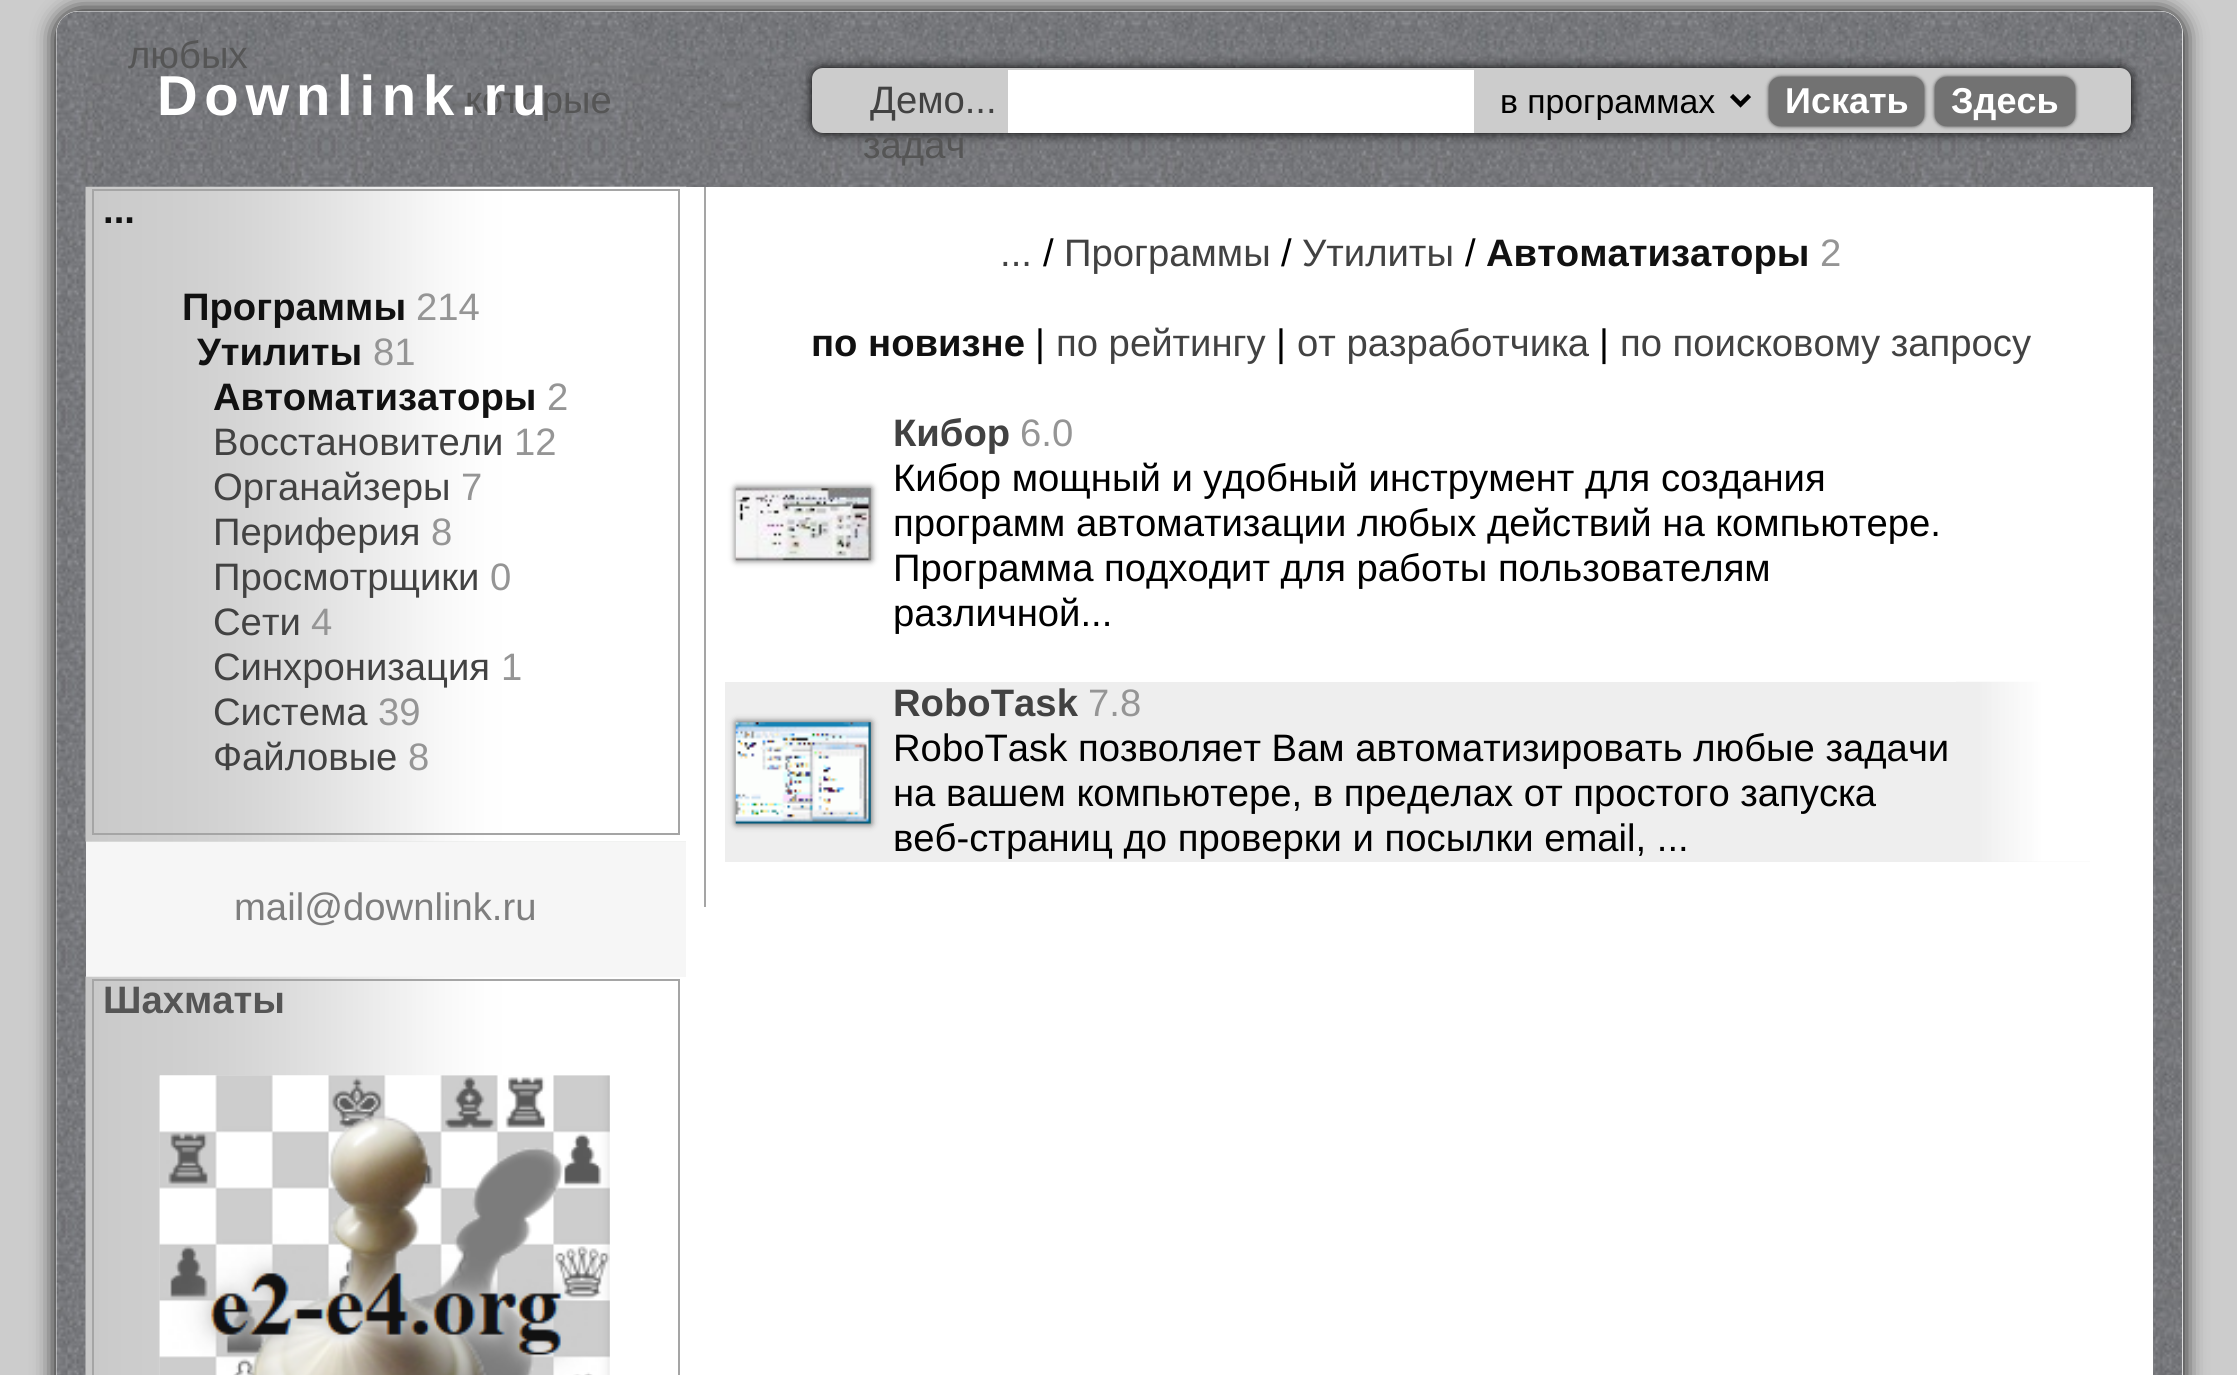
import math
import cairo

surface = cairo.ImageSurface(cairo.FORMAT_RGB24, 2237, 1375)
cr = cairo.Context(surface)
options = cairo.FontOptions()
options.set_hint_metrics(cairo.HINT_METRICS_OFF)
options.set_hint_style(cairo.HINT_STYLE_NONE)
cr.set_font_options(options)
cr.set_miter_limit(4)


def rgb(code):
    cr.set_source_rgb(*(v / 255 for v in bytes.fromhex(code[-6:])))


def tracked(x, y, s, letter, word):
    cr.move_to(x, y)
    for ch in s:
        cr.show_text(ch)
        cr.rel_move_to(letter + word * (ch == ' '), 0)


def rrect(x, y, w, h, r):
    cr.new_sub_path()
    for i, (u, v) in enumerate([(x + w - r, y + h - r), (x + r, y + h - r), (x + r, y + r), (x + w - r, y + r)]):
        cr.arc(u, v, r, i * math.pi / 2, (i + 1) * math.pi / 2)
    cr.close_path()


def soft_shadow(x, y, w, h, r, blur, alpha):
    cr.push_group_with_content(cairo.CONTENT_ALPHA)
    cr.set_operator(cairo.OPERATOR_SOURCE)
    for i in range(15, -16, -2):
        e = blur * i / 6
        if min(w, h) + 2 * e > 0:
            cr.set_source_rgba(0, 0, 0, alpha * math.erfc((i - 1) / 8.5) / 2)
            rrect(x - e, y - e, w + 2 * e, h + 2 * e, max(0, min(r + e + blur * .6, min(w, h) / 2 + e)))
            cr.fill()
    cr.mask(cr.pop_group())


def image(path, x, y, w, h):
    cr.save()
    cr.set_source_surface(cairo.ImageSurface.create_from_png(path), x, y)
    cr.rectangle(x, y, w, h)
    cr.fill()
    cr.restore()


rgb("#cccccc")
cr.paint()
rgb("#000000")
soft_shadow(56, 11, 2127, 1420, 23, 11, 1)
rgb("#ffffff")
rrect(56, 11, 2127, 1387, 23)
cr.fill()
image("img/1.png", 56, 11, 2127, 1364)
rgb("#000000")
soft_shadow(812, 68, 1319, 65, 11, 5.5, 1)
rgb("#cccccc")
rrect(812, 68, 1319, 65, 11)
cr.fill()
rgb("#ffffff")
cr.rectangle(1008, 70, 466, 63)
cr.fill()
cr.new_path()
cr.move_to(1731.5, 95.5)
cr.line_to(1740.5, 104.5)
cr.line_to(1749.5, 95.5)
rgb("#000000")
cr.set_line_width(4.5)
cr.stroke()
rgb("#252525")
soft_shadow(1769, 77, 155, 49, 11, 2, 1)
rgb("#727272")
rrect(1769, 77, 155, 49, 11)
cr.fill()
rgb("#252525")
soft_shadow(1935, 77, 140, 49, 11, 2, 1)
rgb("#727272")
rrect(1935, 77, 140, 49, 11)
cr.fill()
rgb("#ffffff")
cr.rectangle(86, 187, 2067, 1188)
cr.fill()
rgb("#e3e5e3")
cr.rectangle(86, 841, 600, 1)
cr.fill()
image("img/2.png", 85, 186, 602, 656)
cr.rectangle(93, 190, 586, 644)
rgb("#a5a5a5")
cr.set_line_width(2)
cr.stroke()
image("img/3.png", 85, 976, 601, 399)
cr.set_source_rgba(0.933, 0.933, 0.933, 0.55)
cr.rectangle(86, 842, 600, 135)
cr.fill()
cr.rectangle(93, 980, 586, 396)
rgb("#a5a5a5")
cr.stroke()
image("img/4.png", 159, 1075, 451, 300)
image("img/5.png", 159, 1075, 451, 300)
cr.rectangle(704, 187, 2, 720)
cr.fill()
rgb("#555555")
soft_shadow(736, 488, 135, 72, 0, 3.5, 1)
image("img/6.png", 735, 488, 136, 73)
rgb("#eeeeee")
cr.rectangle(725, 682, 1365, 180)
cr.fill()
rgb("#555555")
soft_shadow(736, 722, 135, 102, 0, 3.5, 1)
image("img/7.png", 735, 722, 136, 102)
image("img/8.png", 1956, 681, 134, 181)
cr.select_font_face("Liberation Sans")
cr.set_font_size(38.25)
rgb("#555555")
for x, y, s in [
    (128, 68, "любых"),
    (465, 113, "которые"),
    (863, 158, "задач"),
]:
    cr.move_to(x, y)
    cr.show_text(s)
cr.select_font_face("Liberation Sans", cairo.FONT_SLANT_NORMAL, cairo.FONT_WEIGHT_BOLD)
cr.set_font_size(56.25)
rgb("#ffffff")
tracked(157, 115, "Downlink.ru", 6.75, 0)
cr.select_font_face("Liberation Sans")
cr.set_font_size(38.25)
rgb("#424242")
cr.move_to(870, 113)
cr.show_text("Демо...")
cr.set_font_size(33.75)
rgb("#000000")
cr.move_to(1500, 113)
cr.show_text("в программах")
cr.select_font_face("Liberation Sans", cairo.FONT_SLANT_NORMAL, cairo.FONT_WEIGHT_BOLD)
cr.set_font_size(36)
rgb("#ffffff")
cr.move_to(1785, 113)
cr.show_text("Искать")
cr.move_to(1951, 113)
cr.show_text("Здесь")
cr.set_font_size(38.25)
rgb("#111111")
cr.move_to(103, 223)
cr.show_text("...")
cr.move_to(182, 320)
cr.show_text("Программы")
cr.select_font_face("Liberation Sans")
rgb("#959595")
cr.move_to(416, 320)
cr.show_text("214")
cr.select_font_face("Liberation Sans", cairo.FONT_SLANT_NORMAL, cairo.FONT_WEIGHT_BOLD)
rgb("#111111")
cr.move_to(197, 365)
cr.show_text("Утилиты")
cr.select_font_face("Liberation Sans")
rgb("#959595")
cr.move_to(373, 365)
cr.show_text("81")
cr.select_font_face("Liberation Sans", cairo.FONT_SLANT_NORMAL, cairo.FONT_WEIGHT_BOLD)
rgb("#111111")
cr.move_to(213, 410)
cr.show_text("Автоматизаторы")
cr.select_font_face("Liberation Sans")
rgb("#959595")
cr.move_to(547, 410)
cr.show_text("2")
rgb("#424242")
cr.move_to(213, 455)
cr.show_text("Восстановители")
rgb("#959595")
cr.move_to(514, 455)
cr.show_text("12")
rgb("#424242")
cr.move_to(213, 500)
cr.show_text("Органайзеры")
rgb("#959595")
cr.move_to(461, 500)
cr.show_text("7")
rgb("#424242")
cr.move_to(213, 545)
cr.show_text("Периферия")
rgb("#959595")
cr.move_to(431, 545)
cr.show_text("8")
rgb("#424242")
cr.move_to(213, 590)
cr.show_text("Просмотрщики")
rgb("#959595")
cr.move_to(490, 590)
cr.show_text("0")
rgb("#424242")
cr.move_to(213, 635)
cr.show_text("Сети")
rgb("#959595")
cr.move_to(311, 635)
cr.show_text("4")
rgb("#424242")
cr.move_to(213, 680)
cr.show_text("Синхронизация")
rgb("#959595")
cr.move_to(501, 680)
cr.show_text("1")
rgb("#424242")
cr.move_to(213, 725)
cr.show_text("Система")
rgb("#959595")
cr.move_to(378, 725)
cr.show_text("39")
rgb("#424242")
cr.move_to(213, 770)
cr.show_text("Файловые")
rgb("#959595")
cr.move_to(408, 770)
cr.show_text("8")
rgb("#7e7e7e")
cr.move_to(234, 920)
cr.show_text("mail@downlink.ru")
cr.select_font_face("Liberation Sans", cairo.FONT_SLANT_NORMAL, cairo.FONT_WEIGHT_BOLD)
rgb("#555555")
cr.move_to(103, 1013)
cr.show_text("Шахматы")
cr.select_font_face("Liberation Sans")
rgb("#424242")
cr.move_to(1000, 266)
cr.show_text("...")
rgb("#000000")
cr.move_to(1043, 266)
cr.show_text("/")
rgb("#424242")
cr.move_to(1064, 266)
cr.show_text("Программы")
rgb("#000000")
cr.move_to(1281, 266)
cr.show_text("/")
rgb("#424242")
cr.move_to(1302, 266)
cr.show_text("Утилиты")
rgb("#000000")
cr.move_to(1465, 266)
cr.show_text("/")
cr.select_font_face("Liberation Sans", cairo.FONT_SLANT_NORMAL, cairo.FONT_WEIGHT_BOLD)
rgb("#111111")
cr.move_to(1486, 266)
cr.show_text("Автоматизаторы")
cr.select_font_face("Liberation Sans")
rgb("#959595")
cr.move_to(1820, 266)
cr.show_text("2")
cr.select_font_face("Liberation Sans", cairo.FONT_SLANT_NORMAL, cairo.FONT_WEIGHT_BOLD)
rgb("#111111")
cr.move_to(811, 356)
cr.show_text("по новизне")
cr.select_font_face("Liberation Sans")
rgb("#000000")
cr.move_to(1035, 356)
cr.show_text("|")
rgb("#424242")
cr.move_to(1056, 356)
cr.show_text("по рейтингу")
rgb("#000000")
cr.move_to(1276, 356)
cr.show_text("|")
rgb("#424242")
cr.move_to(1297, 356)
cr.show_text("от разработчика")
rgb("#000000")
cr.move_to(1599, 356)
cr.show_text("|")
rgb("#424242")
cr.move_to(1620, 356)
cr.show_text("по поисковому запросу")
cr.select_font_face("Liberation Sans", cairo.FONT_SLANT_NORMAL, cairo.FONT_WEIGHT_BOLD)
cr.move_to(893, 446)
cr.show_text("Кибор")
cr.select_font_face("Liberation Sans")
rgb("#959595")
cr.move_to(1020, 446)
cr.show_text("6.0")
rgb("#000000")
for x, y, s in [
    (893, 491, "Кибор мощный и удобный инструмент для создания"),
    (893, 536, "программ автоматизации любых действий на компьютере."),
    (893, 581, "Программа подходит для работы пользователям"),
    (893, 626, "различной..."),
]:
    cr.move_to(x, y)
    cr.show_text(s)
cr.select_font_face("Liberation Sans", cairo.FONT_SLANT_NORMAL, cairo.FONT_WEIGHT_BOLD)
rgb("#424242")
cr.move_to(893, 716)
cr.show_text("RoboTask")
cr.select_font_face("Liberation Sans")
rgb("#959595")
cr.move_to(1088, 716)
cr.show_text("7.8")
rgb("#000000")
for x, y, s in [
    (893, 761, "RoboTask позволяет Вам автоматизировать любые задачи"),
    (893, 806, "на вашем компьютере, в пределах от простого запуска"),
    (893, 851, "веб-страниц до проверки и посылки email, ..."),
]:
    cr.move_to(x, y)
    cr.show_text(s)
surface.write_to_png("page.png")
